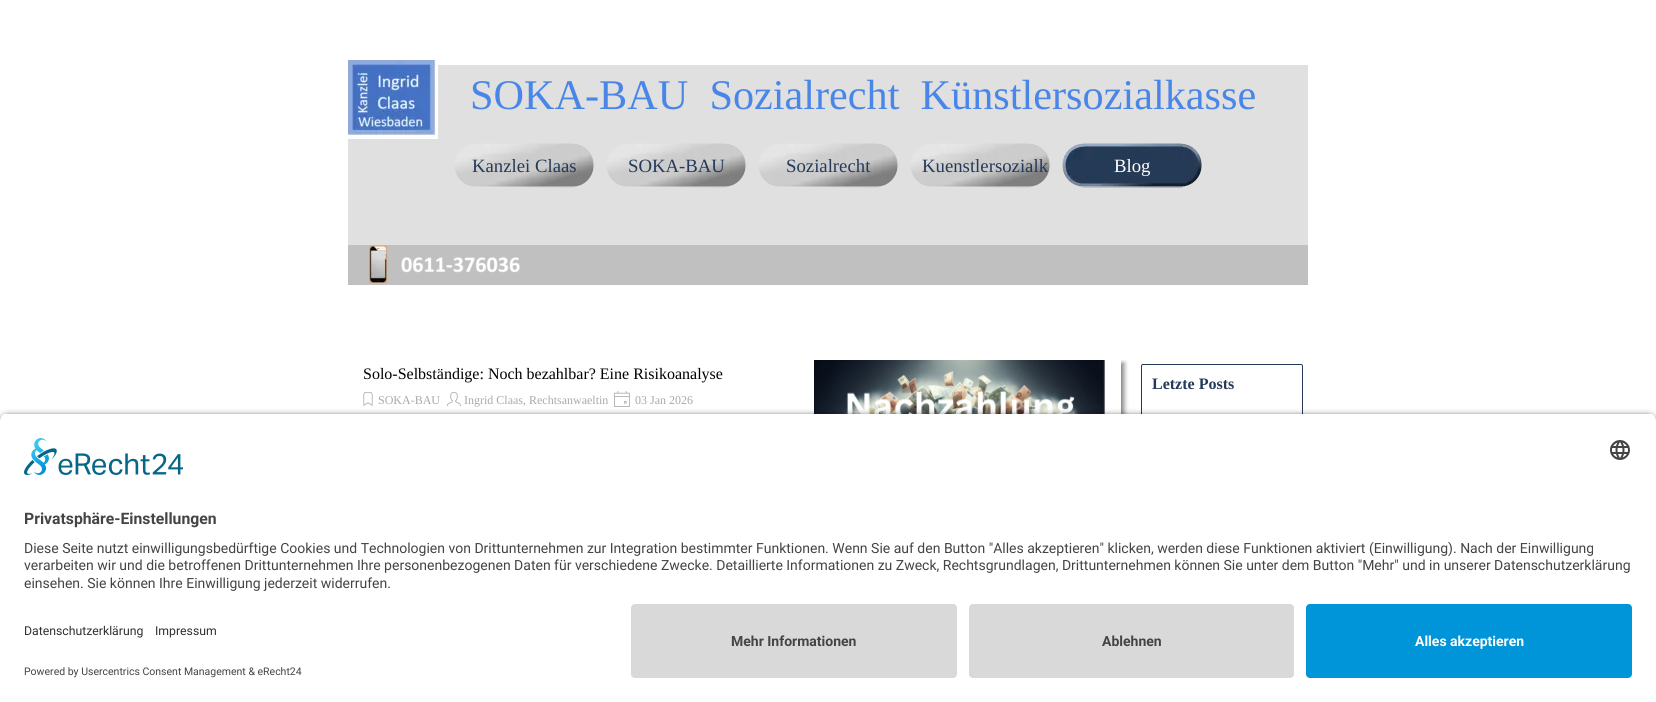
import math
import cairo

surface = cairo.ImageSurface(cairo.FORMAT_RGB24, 1656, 702)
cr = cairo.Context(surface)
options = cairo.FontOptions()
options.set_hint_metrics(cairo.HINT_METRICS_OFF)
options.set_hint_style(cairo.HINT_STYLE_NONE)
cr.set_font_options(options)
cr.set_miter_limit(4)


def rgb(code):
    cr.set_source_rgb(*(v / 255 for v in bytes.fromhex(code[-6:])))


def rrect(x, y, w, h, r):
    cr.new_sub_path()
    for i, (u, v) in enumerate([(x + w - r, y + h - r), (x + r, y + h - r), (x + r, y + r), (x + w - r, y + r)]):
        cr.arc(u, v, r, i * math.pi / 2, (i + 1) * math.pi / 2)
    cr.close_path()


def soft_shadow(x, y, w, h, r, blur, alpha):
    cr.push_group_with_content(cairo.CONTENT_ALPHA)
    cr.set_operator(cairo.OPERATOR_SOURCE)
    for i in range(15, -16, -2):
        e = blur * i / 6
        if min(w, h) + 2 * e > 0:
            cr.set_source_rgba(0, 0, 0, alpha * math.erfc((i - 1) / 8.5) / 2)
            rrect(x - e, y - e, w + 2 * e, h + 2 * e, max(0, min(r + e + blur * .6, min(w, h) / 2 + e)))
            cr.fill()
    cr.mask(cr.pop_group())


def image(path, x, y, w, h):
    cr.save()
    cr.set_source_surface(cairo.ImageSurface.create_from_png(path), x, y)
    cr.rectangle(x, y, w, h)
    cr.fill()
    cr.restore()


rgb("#ffffff")
cr.paint()
image("img/1.png", 348, 65, 960, 220)
image("img/2.png", 348, 60, 90, 79)
image("img/3.png", 455, 143, 139, 45)
image("img/3.png", 607, 143, 139, 45)
image("img/3.png", 759, 143, 139, 45)
image("img/3.png", 911, 143, 139, 45)
image("img/4.png", 1062, 143, 140, 45)
image("img/5.png", 369, 245, 151, 38)
cr.save()
cr.rectangle(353, 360, 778, 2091)
cr.clip()
cr.rectangle(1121, 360, 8, 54)
cr.clip()
rgb("#808080")
soft_shadow(356, 363, 768, 263, 0, 2.5, 1)
cr.restore()
image("img/6.png", 363, 391, 10, 15)
image("img/7.png", 447, 392, 14, 15)
image("img/8.png", 614, 391, 16, 16)
image("img/9.png", 814, 360, 291, 54)
rrect(1141.5, 364.5, 161, 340, 1.5)
rgb("#253a58")
cr.set_line_width(1)
cr.stroke()
rgb("#000000")
soft_shadow(0, 416, 1656, 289, 8, 3.5, 0.8)
cr.save()
cr.new_path()
cr.move_to(8, 413)
cr.line_to(1648, 413)
cr.curve_to(1652.5, 413, 1656, 416.5, 1656, 421)
cr.line_to(1656, 596)
cr.line_to(0, 596)
cr.line_to(0, 421)
cr.curve_to(0, 416.5, 3.5, 413, 8, 413)
cr.close_path()
cr.clip()
rgb("#ffffff")
cr.rectangle(0, 414, 1656, 182)
cr.fill()
cr.restore()
image("img/10.png", 24, 438, 160, 37)
image("img/11.png", 1610, 440, 20, 20)
rgb("#ffffff")
cr.rectangle(0, 596, 1656, 106)
cr.fill()
rgb("#d9d9d9")
rrect(631, 604, 326, 74, 4)
cr.fill()
rrect(969, 604, 325, 74, 4)
cr.fill()
rgb("#0094d8")
rrect(1306, 604, 326, 74, 4)
cr.fill()
cr.select_font_face("Liberation Serif")
cr.set_font_size(42.25)
rgb("#4a86e8")
cr.move_to(470, 109)
cr.show_text("SOKA-BAU  Sozialrecht  Künstlersozialkasse")
cr.set_font_size(18.75)
rgb("#253a58")
for x, y, s in [
    (472, 172, "Kanzlei Claas"),
    (628, 172, "SOKA-BAU"),
    (786, 172, "Sozialrecht"),
    (922, 172, "Kuenstlersozialk"),
]:
    cr.move_to(x, y)
    cr.show_text(s)
rgb("#ffffff")
cr.move_to(1114, 172)
cr.show_text("Blog")
cr.set_font_size(16)
rgb("#000000")
cr.move_to(363, 379)
cr.show_text("Solo-Selbständige: Noch bezahlbar? Eine Risikoanalyse")
cr.set_font_size(12)
rgb("#a9a9a9")
for x, y, s in [
    (378, 404, "SOKA-BAU"),
    (464, 404, "Ingrid Claas, Rechtsanwaeltin"),
    (635, 404, "03 Jan 2026"),
]:
    cr.move_to(x, y)
    cr.show_text(s)
cr.select_font_face("Liberation Serif", cairo.FONT_SLANT_NORMAL, cairo.FONT_WEIGHT_BOLD)
cr.set_font_size(16)
rgb("#253a58")
cr.move_to(1152, 389)
cr.show_text("Letzte Posts")
cr.select_font_face("Roboto", cairo.FONT_SLANT_NORMAL, cairo.FONT_WEIGHT_BOLD)
cr.set_font_size(15.75)
rgb("#444444")
cr.move_to(24, 524)
cr.show_text("Privatsphäre-Einstellungen")
cr.select_font_face("Roboto")
cr.set_font_size(14)
for x, y, s in [
    (24, 553, "Diese Seite nutzt einwilligungsbedürftige Cookies und Technologien von Drittunternehmen zur Integration bestimmter Funktionen. Wenn Sie auf den Button \"Alles akzeptieren\" klicken, werden diese Funktionen aktiviert (Einwilligung). Nach der Einwilligung"),
    (24, 570, "verarbeiten wir und die betroffenen Drittunternehmen Ihre personenbezogenen Daten für verschiedene Zwecke. Detaillierte Informationen zu Zweck, Rechtsgrundlagen, Drittunternehmen können Sie unter dem Button \"Mehr\" und in unserer Datenschutzerklärung"),
    (24, 588, "einsehen. Sie können Ihre Einwilligung jederzeit widerrufen."),
]:
    cr.move_to(x, y)
    cr.show_text(s)
cr.set_font_size(12.25)
rgb("#303030")
cr.move_to(24, 635)
cr.show_text("Datenschutzerklärung")
cr.move_to(155, 635)
cr.show_text("Impressum")
cr.set_font_size(10.5)
rgb("#444444")
cr.move_to(24, 675)
cr.show_text("Powered by Usercentrics Consent Management & eRecht24")
cr.select_font_face("Roboto", cairo.FONT_SLANT_NORMAL, cairo.FONT_WEIGHT_BOLD)
cr.set_font_size(14)
cr.move_to(731, 646)
cr.show_text("Mehr Informationen")
cr.move_to(1102, 646)
cr.show_text("Ablehnen")
rgb("#ffffff")
cr.move_to(1415, 646)
cr.show_text("Alles akzeptieren")
surface.write_to_png("page.png")
